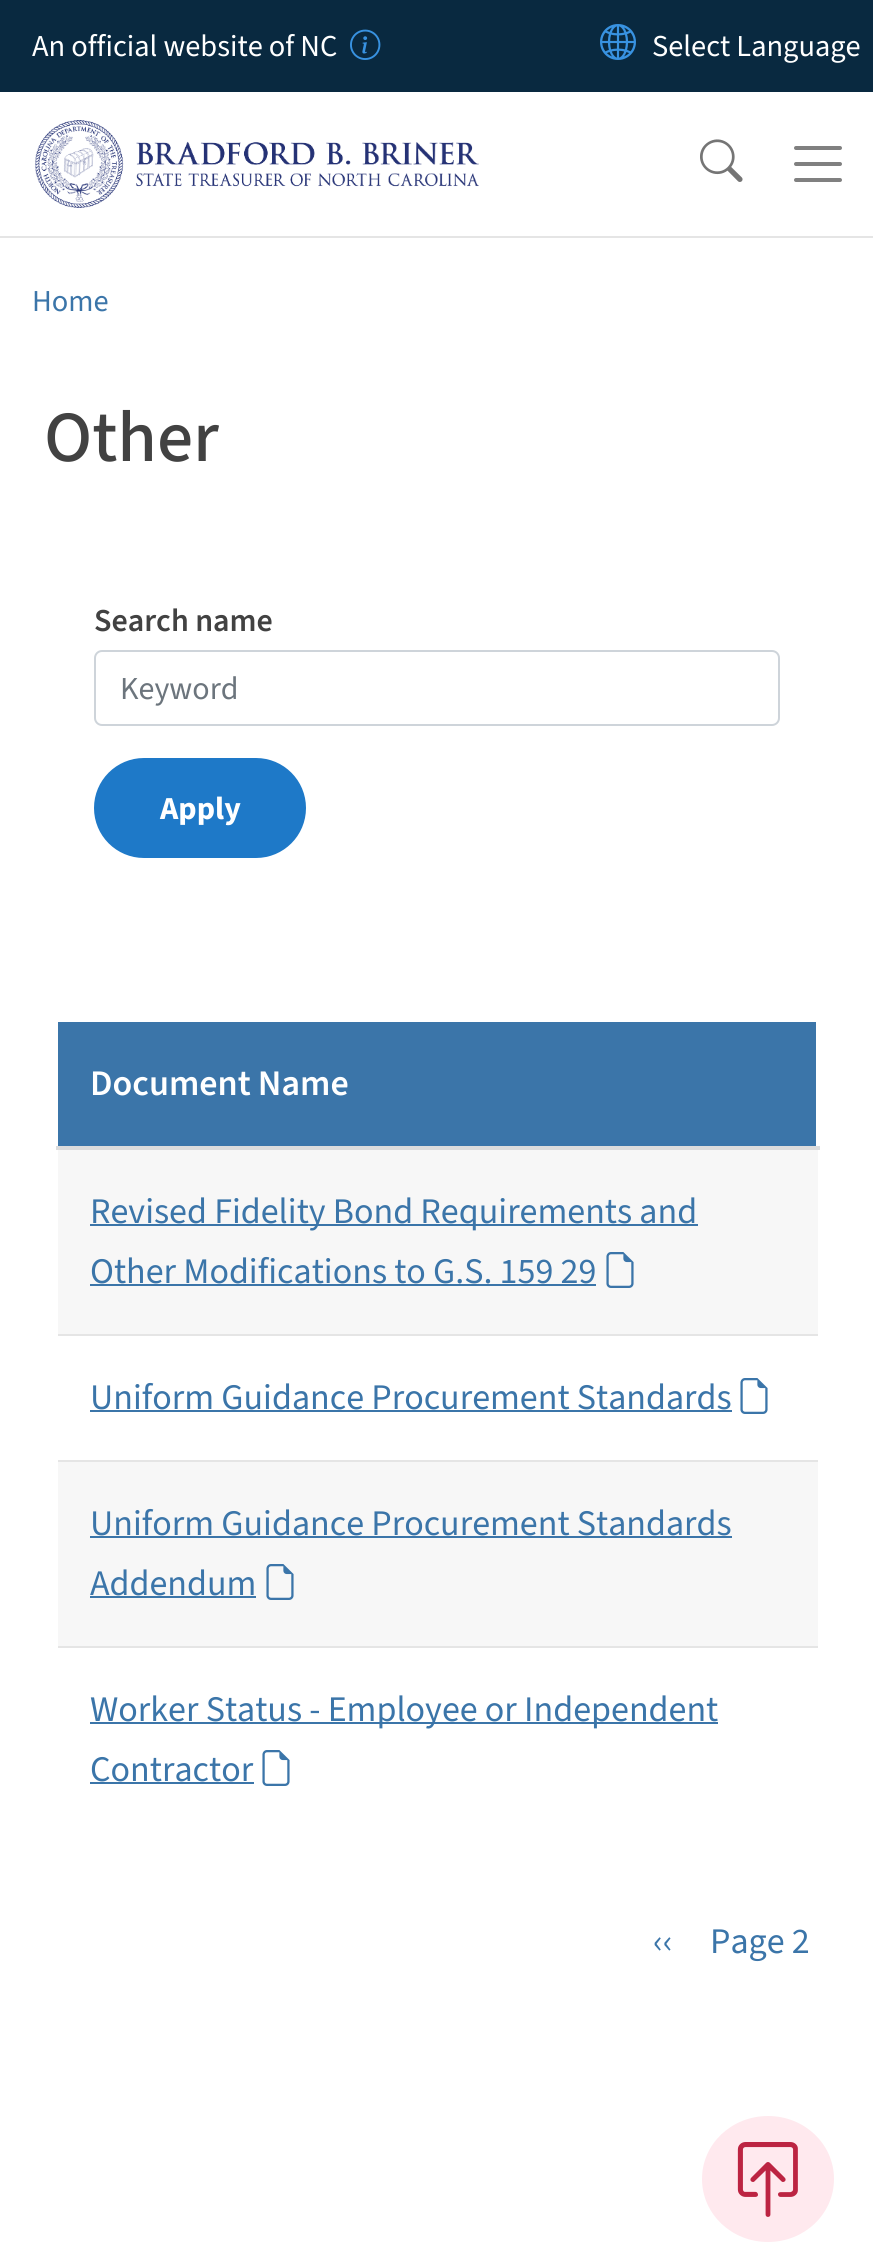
import math
import cairo

surface = cairo.ImageSurface(cairo.FORMAT_RGB24, 873, 2245)
cr = cairo.Context(surface)
options = cairo.FontOptions()
options.set_hint_metrics(cairo.HINT_METRICS_OFF)
options.set_hint_style(cairo.HINT_STYLE_NONE)
cr.set_font_options(options)
cr.set_miter_limit(4)


def rgb(code):
    cr.set_source_rgb(*(v / 255 for v in bytes.fromhex(code[-6:])))


def rrect(x, y, w, h, r):
    cr.new_sub_path()
    for i, (u, v) in enumerate([(x + w - r, y + h - r), (x + r, y + h - r), (x + r, y + r), (x + w - r, y + r)]):
        cr.arc(u, v, r, i * math.pi / 2, (i + 1) * math.pi / 2)
    cr.close_path()


def image(path, x, y, w, h):
    cr.save()
    cr.set_source_surface(cairo.ImageSurface.create_from_png(path), x, y)
    cr.rectangle(x, y, w, h)
    cr.fill()
    cr.restore()


rgb("#ffffff")
cr.paint()
rgb("#e5e5e5")
cr.rectangle(0, 236, 873, 2)
cr.fill()
rgb("#092940")
cr.rectangle(0, 0, 873, 92)
cr.fill()
image("img/1.png", 350, 29, 31, 31)
image("img/2.png", 600, 24, 36, 36)
image("img/3.png", 35, 120, 444, 88)
image("img/4.png", 700, 139, 43, 43)
cr.new_path()
cr.move_to(796, 148)
cr.line_to(840, 148)
cr.move_to(796, 164)
cr.line_to(840, 164)
cr.move_to(796, 180)
cr.line_to(840, 180)
rgb("#808080")
cr.set_line_width(4)
cr.set_line_cap(cairo.LINE_CAP_ROUND)
cr.stroke()
rrect(95, 651, 684, 74, 7)
rgb("#ced4da")
cr.set_line_width(2)
cr.set_line_cap(cairo.LINE_CAP_BUTT)
cr.stroke()
rgb("#1e79c8")
rrect(95, 759, 210, 98, 49)
cr.fill_preserve()
cr.stroke()
for x, y, w, h, color in [
    (58, 1022, 758, 124, "#3b75a9"),
    (56, 1146, 764, 4, "#dcdcdc"),
    (58, 1150, 760, 184, "#f7f7f7"),
    (56, 1334, 762, 2, "#e5e5e5"),
    (56, 1334, 2, 2, "#ffffff"),
    (90, 1224, 608, 2, "#3b75a9"),
    (90, 1284, 506, 2, "#3b75a9"),
]:
    rgb(color)
    cr.rectangle(x, y, w, h)
    cr.fill()
image("img/5.png", 606, 1252, 28, 36)
for x, y, w, h, color in [
    (56, 1460, 762, 2, "#e5e5e5"),
    (56, 1460, 2, 2, "#ffffff"),
    (90, 1410, 642, 2, "#3b75a9"),
]:
    rgb(color)
    cr.rectangle(x, y, w, h)
    cr.fill()
image("img/6.png", 740, 1378, 28, 36)
for x, y, w, h, color in [
    (58, 1462, 760, 184, "#f7f7f7"),
    (56, 1646, 762, 2, "#e5e5e5"),
    (56, 1646, 2, 2, "#ffffff"),
    (90, 1536, 642, 2, "#3b75a9"),
    (90, 1596, 166, 2, "#3b75a9"),
]:
    rgb(color)
    cr.rectangle(x, y, w, h)
    cr.fill()
image("img/5.png", 266, 1564, 28, 36)
cr.rectangle(90, 1722, 628, 2)
cr.fill()
cr.rectangle(90, 1782, 164, 2)
cr.fill()
image("img/6.png", 262, 1750, 28, 36)
rgb("#ffe9ee")
cr.new_path()
cr.move_to(768, 2116)
cr.curve_to(804.5, 2116, 834, 2144, 834, 2179)
cr.curve_to(834, 2214, 804.5, 2242, 768, 2242)
cr.curve_to(731.5, 2242, 702, 2214, 702, 2179)
cr.curve_to(702, 2144, 731.5, 2116, 768, 2116)
cr.close_path()
cr.fill()
image("img/7.png", 737, 2142, 61, 75)
cr.select_font_face("Source Sans 3")
cr.set_font_size(30.4)
rgb("#ffffff")
cr.move_to(32, 56)
cr.show_text("An official website of NC")
cr.move_to(652, 56)
cr.show_text("Select Language")
rgb("#3b75a9")
cr.move_to(32, 311)
cr.show_text("Home")
cr.select_font_face("Source Sans 3 Medium")
cr.set_font_size(72)
rgb("#424242")
cr.move_to(44, 461)
cr.show_text("Other")
cr.select_font_face("Source Sans 3 SemiBold")
cr.set_font_size(32)
cr.move_to(94, 631)
cr.show_text("Search name")
cr.select_font_face("Source Sans 3")
rgb("#6c757d")
cr.move_to(120, 699)
cr.show_text("Keyword")
cr.select_font_face("Source Sans 3", cairo.FONT_SLANT_NORMAL, cairo.FONT_WEIGHT_BOLD)
rgb("#ffffff")
cr.move_to(160, 819)
cr.show_text("Apply")
cr.select_font_face("Source Sans 3 SemiBold")
cr.set_font_size(36)
cr.move_to(90, 1095)
cr.show_text("Document Name")
cr.select_font_face("Source Sans 3")
rgb("#3b75a9")
for x, y, s in [
    (90, 1223, "Revised Fidelity Bond Requirements and"),
    (90, 1283, "Other Modifications to G.S. 159 29"),
    (90, 1409, "Uniform Guidance Procurement Standards"),
    (90, 1535, "Uniform Guidance Procurement Standards"),
    (90, 1595, "Addendum"),
    (90, 1721, "Worker Status - Employee or Independent"),
    (90, 1781, "Contractor"),
    (653, 1953, "‹‹"),
    (710, 1953, "Page 2"),
]:
    cr.move_to(x, y)
    cr.show_text(s)
surface.write_to_png("page.png")
